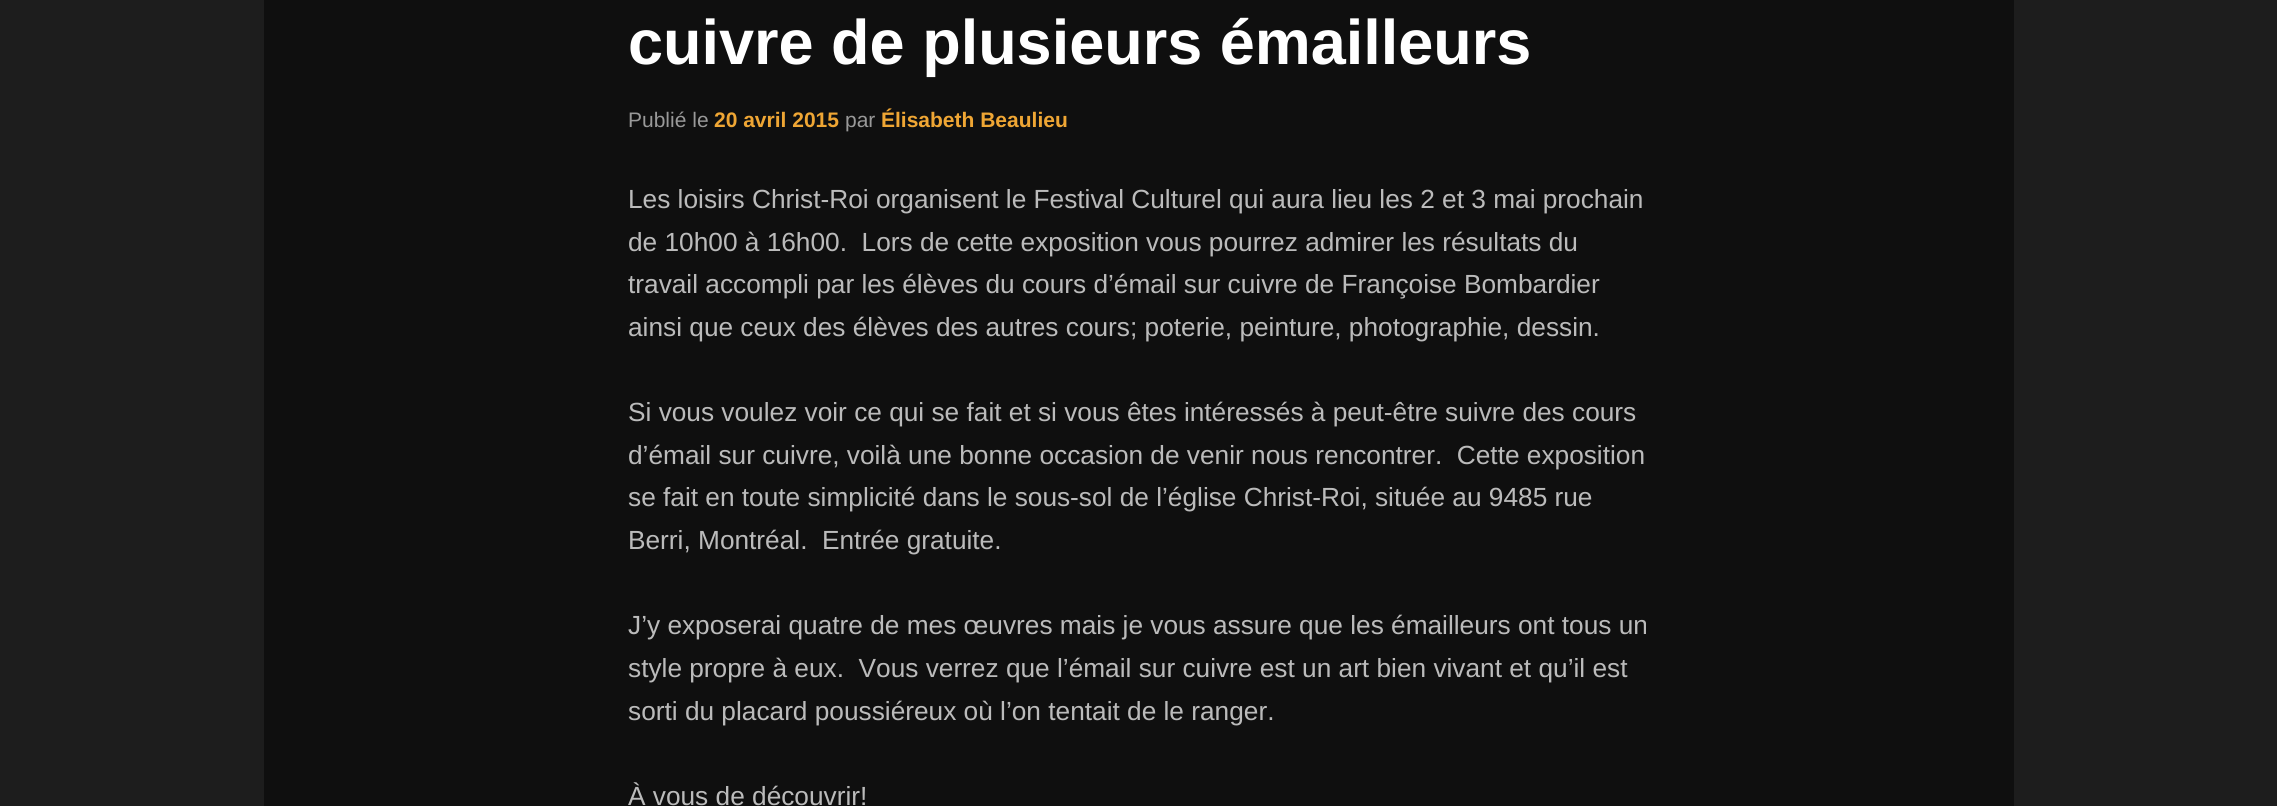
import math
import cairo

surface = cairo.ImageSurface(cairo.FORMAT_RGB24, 2277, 806)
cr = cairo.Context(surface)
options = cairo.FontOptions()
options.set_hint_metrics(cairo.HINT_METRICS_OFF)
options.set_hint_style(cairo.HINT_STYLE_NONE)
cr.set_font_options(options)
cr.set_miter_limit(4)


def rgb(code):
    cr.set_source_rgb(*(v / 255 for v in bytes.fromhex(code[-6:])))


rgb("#1d1d1d")
cr.paint()
rgb("#0f0f0f")
cr.rectangle(264, 0, 1750, 806)
cr.fill()
cr.select_font_face("Liberation Sans", cairo.FONT_SLANT_NORMAL, cairo.FONT_WEIGHT_BOLD)
cr.set_font_size(63)
rgb("#ffffff")
cr.move_to(628, 64)
cr.show_text("cuivre de plusieurs émailleurs")
cr.select_font_face("Liberation Sans")
cr.set_font_size(21)
rgb("#999999")
cr.move_to(628, 127)
cr.show_text("Publié le")
cr.select_font_face("Liberation Sans", cairo.FONT_SLANT_NORMAL, cairo.FONT_WEIGHT_BOLD)
rgb("#efa634")
cr.move_to(714, 127)
cr.show_text("20 avril 2015")
cr.select_font_face("Liberation Sans")
rgb("#999999")
cr.move_to(845, 127)
cr.show_text("par")
cr.select_font_face("Liberation Sans", cairo.FONT_SLANT_NORMAL, cairo.FONT_WEIGHT_BOLD)
rgb("#efa634")
cr.move_to(881, 127)
cr.show_text("Élisabeth Beaulieu")
cr.select_font_face("Liberation Sans")
cr.set_font_size(26.25)
rgb("#bbbbbb")
for x, y, s in [
    (628, 208, "Les loisirs Christ-Roi organisent le Festival Culturel qui aura lieu les 2 et 3 mai prochain"),
    (628, 251, "de 10h00 à 16h00.  Lors de cette exposition vous pourrez admirer les résultats du"),
    (628, 293, "travail accompli par les élèves du cours d’émail sur cuivre de Françoise Bombardier"),
    (628, 336, "ainsi que ceux des élèves des autres cours; poterie, peinture, photographie, dessin."),
    (628, 421, "Si vous voulez voir ce qui se fait et si vous êtes intéressés à peut-être suivre des cours"),
    (628, 464, "d’émail sur cuivre, voilà une bonne occasion de venir nous rencontrer.  Cette exposition"),
    (628, 506, "se fait en toute simplicité dans le sous-sol de l’église Christ-Roi, située au 9485 rue"),
    (628, 549, "Berri, Montréal.  Entrée gratuite."),
    (628, 634, "J’y exposerai quatre de mes œuvres mais je vous assure que les émailleurs ont tous un"),
    (628, 677, "style propre à eux.  Vous verrez que l’émail sur cuivre est un art bien vivant et qu’il est"),
    (628, 720, "sorti du placard poussiéreux où l’on tentait de le ranger."),
    (628, 805, "À vous de découvrir!"),
]:
    cr.move_to(x, y)
    cr.show_text(s)
surface.write_to_png("page.png")
